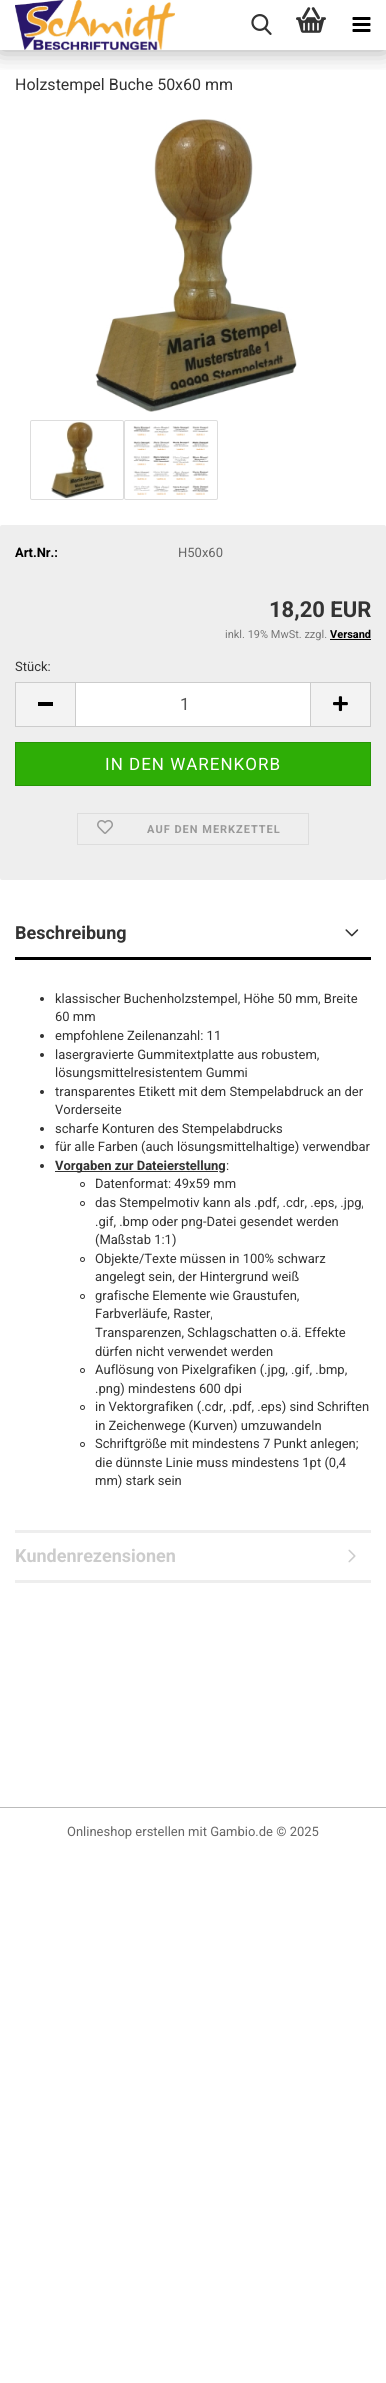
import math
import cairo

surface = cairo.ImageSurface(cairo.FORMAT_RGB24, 386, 2383)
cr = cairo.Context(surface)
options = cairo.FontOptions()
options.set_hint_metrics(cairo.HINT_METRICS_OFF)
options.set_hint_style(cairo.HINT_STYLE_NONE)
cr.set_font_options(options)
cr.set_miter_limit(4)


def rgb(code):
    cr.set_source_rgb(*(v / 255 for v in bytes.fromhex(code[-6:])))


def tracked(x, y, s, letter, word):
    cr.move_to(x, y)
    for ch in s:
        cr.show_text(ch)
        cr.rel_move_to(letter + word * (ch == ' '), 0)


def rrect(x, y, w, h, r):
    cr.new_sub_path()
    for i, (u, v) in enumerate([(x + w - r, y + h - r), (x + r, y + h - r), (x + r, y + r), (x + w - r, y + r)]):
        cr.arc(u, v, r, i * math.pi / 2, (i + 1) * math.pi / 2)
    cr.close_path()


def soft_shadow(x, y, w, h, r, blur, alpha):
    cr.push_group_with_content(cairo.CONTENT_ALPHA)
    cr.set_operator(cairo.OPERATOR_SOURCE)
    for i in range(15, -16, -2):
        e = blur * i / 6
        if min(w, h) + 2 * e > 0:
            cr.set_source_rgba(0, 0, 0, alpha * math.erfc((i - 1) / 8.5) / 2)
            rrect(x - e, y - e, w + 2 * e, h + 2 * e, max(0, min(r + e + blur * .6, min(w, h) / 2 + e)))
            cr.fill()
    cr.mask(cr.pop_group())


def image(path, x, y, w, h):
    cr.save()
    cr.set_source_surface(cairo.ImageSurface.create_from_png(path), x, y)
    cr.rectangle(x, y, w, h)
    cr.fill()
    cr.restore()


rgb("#ffffff")
cr.paint()
cr.save()
cr.rectangle(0, 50, 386, 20)
cr.clip()
rgb("#000000")
soft_shadow(0, 0, 386, 50, 0, 12.5, 0.35)
cr.restore()
image("img/1.png", 15, 0, 160, 50)
image("img/2.png", 251, 14, 21, 21)
image("img/3.png", 296, 7, 30, 26)
image("img/4.png", 352, 17, 19, 15)
image("img/5.png", 95, 119, 202, 293)
rrect(30.5, 420.5, 93, 79, 1.5)
rgb("#dddddd")
cr.set_line_width(1)
cr.stroke()
image("img/6.png", 51, 421, 54, 78)
rrect(124.5, 420.5, 93, 79, 1.5)
cr.stroke()
image("img/7.png", 133, 426, 76, 69)
rgb("#eeeeee")
rrect(0, 525, 386, 355, 2)
cr.fill()
for x, y, w, h, color in [
    (330, 639, 41, 1, "#000000"),
    (16, 683, 59, 43, "#f3f3f3"),
    (15, 682, 60, 1, "#cccccc"),
    (15, 726, 60, 1, "#cccccc"),
    (15, 682, 1, 45, "#cccccc"),
    (38, 702, 15, 4, "#000000"),
]:
    rgb(color)
    cr.rectangle(x, y, w, h)
    cr.fill()
rgb("#ffffff")
cr.rectangle(75.5, 682.5, 235, 44)
cr.fill_preserve()
rgb("#cccccc")
cr.stroke()
for x, y, w, h, color in [
    (311, 683, 59, 43, "#f3f3f3"),
    (311, 682, 60, 1, "#cccccc"),
    (370, 682, 1, 45, "#cccccc"),
    (311, 726, 60, 1, "#cccccc"),
]:
    rgb(color)
    cr.rectangle(x, y, w, h)
    cr.fill()
image("img/8.png", 333, 696, 15, 16)
rgb("#2eae06")
cr.rectangle(15.5, 742.5, 355, 43)
cr.fill_preserve()
rgb("#279505")
cr.stroke()
cr.rectangle(77.5, 813.5, 231, 31)
rgb("#dddddd")
cr.stroke()
image("img/9.png", 97, 820, 16, 14)
rgb("#000000")
cr.rectangle(15, 957, 356, 3)
cr.fill()
image("img/10.png", 345, 929, 14, 8)
rgb("#eeeeee")
cr.rectangle(15, 1530, 356, 3)
cr.fill()
rgb("#333333")
cr.arc(42, 999, 2, 0, 2 * math.pi)
cr.fill()
cr.arc(42, 1036, 2, 0, 2 * math.pi)
cr.fill()
cr.arc(42, 1055, 2, 0, 2 * math.pi)
cr.fill()
cr.arc(42, 1092, 2, 0, 2 * math.pi)
cr.fill()
cr.arc(42, 1129, 2, 0, 2 * math.pi)
cr.fill()
cr.arc(42, 1147, 2, 0, 2 * math.pi)
cr.fill()
cr.arc(42, 1166, 2, 0, 2 * math.pi)
cr.fill()
cr.rectangle(55, 1171, 163, 1)
cr.fill()
cr.arc(82.5, 1184.5, 2, 0, 2 * math.pi)
cr.stroke()
cr.arc(82.5, 1203.5, 2, 0, 2 * math.pi)
cr.stroke()
cr.arc(82.5, 1259.5, 2, 0, 2 * math.pi)
cr.stroke()
cr.arc(82.5, 1296.5, 2, 0, 2 * math.pi)
cr.stroke()
cr.arc(82.5, 1370.5, 2, 0, 2 * math.pi)
cr.stroke()
cr.arc(82.5, 1407.5, 2, 0, 2 * math.pi)
cr.stroke()
cr.arc(82.5, 1444.5, 2, 0, 2 * math.pi)
cr.stroke()
rgb("#eeeeee")
cr.rectangle(15, 1580, 356, 3)
cr.fill()
image("img/11.png", 348, 1549, 8, 14)
rgb("#bbbbbb")
cr.rectangle(0, 1807, 386, 1)
cr.fill()
cr.select_font_face("Roboto")
cr.set_font_size(16)
rgb("#333333")
cr.move_to(15, 90)
cr.show_text("Holzstempel Buche 50x60 mm")
cr.select_font_face("Roboto", cairo.FONT_SLANT_NORMAL, cairo.FONT_WEIGHT_BOLD)
cr.set_font_size(13)
rgb("#000000")
cr.move_to(15, 557)
cr.show_text("Art.Nr.:")
cr.select_font_face("Roboto")
rgb("#666666")
cr.move_to(178, 557)
cr.show_text("H50x60")
cr.select_font_face("Roboto", cairo.FONT_SLANT_NORMAL, cairo.FONT_WEIGHT_BOLD)
cr.set_font_size(22)
rgb("#333333")
cr.move_to(269, 617)
cr.show_text("18,20 EUR")
cr.select_font_face("Roboto")
cr.set_font_size(11)
rgb("#777777")
cr.move_to(225, 638)
cr.show_text("inkl. 19% MwSt. zzgl.")
cr.select_font_face("Roboto", cairo.FONT_SLANT_NORMAL, cairo.FONT_WEIGHT_BOLD)
rgb("#000000")
cr.move_to(330, 638)
cr.show_text("Versand")
cr.select_font_face("Roboto")
cr.set_font_size(13)
rgb("#333333")
cr.move_to(15, 671)
cr.show_text("Stück:")
cr.set_font_size(17)
rgb("#555555")
cr.move_to(180, 710)
cr.show_text("1")
rgb("#ffffff")
tracked(105, 770, "IN DEN WARENKORB", 1, 0)
cr.select_font_face("Roboto", cairo.FONT_SLANT_NORMAL, cairo.FONT_WEIGHT_BOLD)
cr.set_font_size(11)
rgb("#999999")
tracked(147, 833, "AUF DEN MERKZETTEL", 1, 0)
cr.set_font_size(18)
rgb("#333333")
cr.move_to(15, 939)
cr.show_text("Beschreibung")
cr.select_font_face("Roboto")
cr.set_font_size(13)
for x, y, s in [
    (55, 1003, "klassischer Buchenholzstempel, Höhe 50 mm, Breite"),
    (55, 1021, "60 mm"),
    (55, 1040, "empfohlene Zeilenanzahl: 11"),
    (55, 1059, "lasergravierte Gummitextplatte aus robustem,"),
    (55, 1077, "lösungsmittelresistentem Gummi"),
    (55, 1096, "transparentes Etikett mit dem Stempelabdruck an der"),
    (55, 1114, "Vorderseite"),
    (55, 1133, "scharfe Konturen des Stempelabdrucks"),
    (55, 1151, "für alle Farben (auch lösungsmittelhaltige) verwendbar"),
]:
    cr.move_to(x, y)
    cr.show_text(s)
cr.select_font_face("Roboto", cairo.FONT_SLANT_NORMAL, cairo.FONT_WEIGHT_BOLD)
cr.move_to(55, 1170)
cr.show_text("Vorgaben zur Dateierstellung")
cr.select_font_face("Roboto")
for x, y, s in [
    (226, 1170, ":"),
    (95, 1188, "Datenformat: 49x59 mm"),
    (95, 1207, "das Stempelmotiv kann als .pdf, .cdr, .eps, .jpg,"),
    (95, 1226, ".gif, .bmp oder png-Datei gesendet werden"),
    (95, 1244, "(Maßstab 1:1)"),
    (95, 1263, "Objekte/Texte müssen in 100% schwarz"),
    (95, 1281, "angelegt sein, der Hintergrund weiß"),
    (95, 1300, "grafische Elemente wie Graustufen,"),
    (95, 1318, "Farbverläufe, Raster,"),
    (95, 1337, "Transparenzen, Schlagschatten o.ä. Effekte"),
    (95, 1356, "dürfen nicht verwendet werden"),
    (95, 1374, "Auflösung von Pixelgrafiken (.jpg, .gif, .bmp,"),
    (95, 1393, ".png) mindestens 600 dpi"),
    (95, 1411, "in Vektorgrafiken (.cdr, .pdf, .eps) sind Schriften"),
    (95, 1430, "in Zeichenwege (Kurven) umzuwandeln"),
    (95, 1448, "Schriftgröße mit mindestens 7 Punkt anlegen;"),
    (95, 1467, "die dünnste Linie muss mindestens 1pt (0,4"),
    (95, 1485, "mm) stark sein"),
]:
    cr.move_to(x, y)
    cr.show_text(s)
cr.select_font_face("Roboto", cairo.FONT_SLANT_NORMAL, cairo.FONT_WEIGHT_BOLD)
cr.set_font_size(18)
rgb("#cccccc")
cr.move_to(15, 1562)
cr.show_text("Kundenrezensionen")
cr.select_font_face("Roboto")
cr.set_font_size(13)
rgb("#666666")
cr.move_to(67, 1836)
cr.show_text("Onlineshop erstellen mit Gambio.de © 2025")
surface.write_to_png("page.png")
